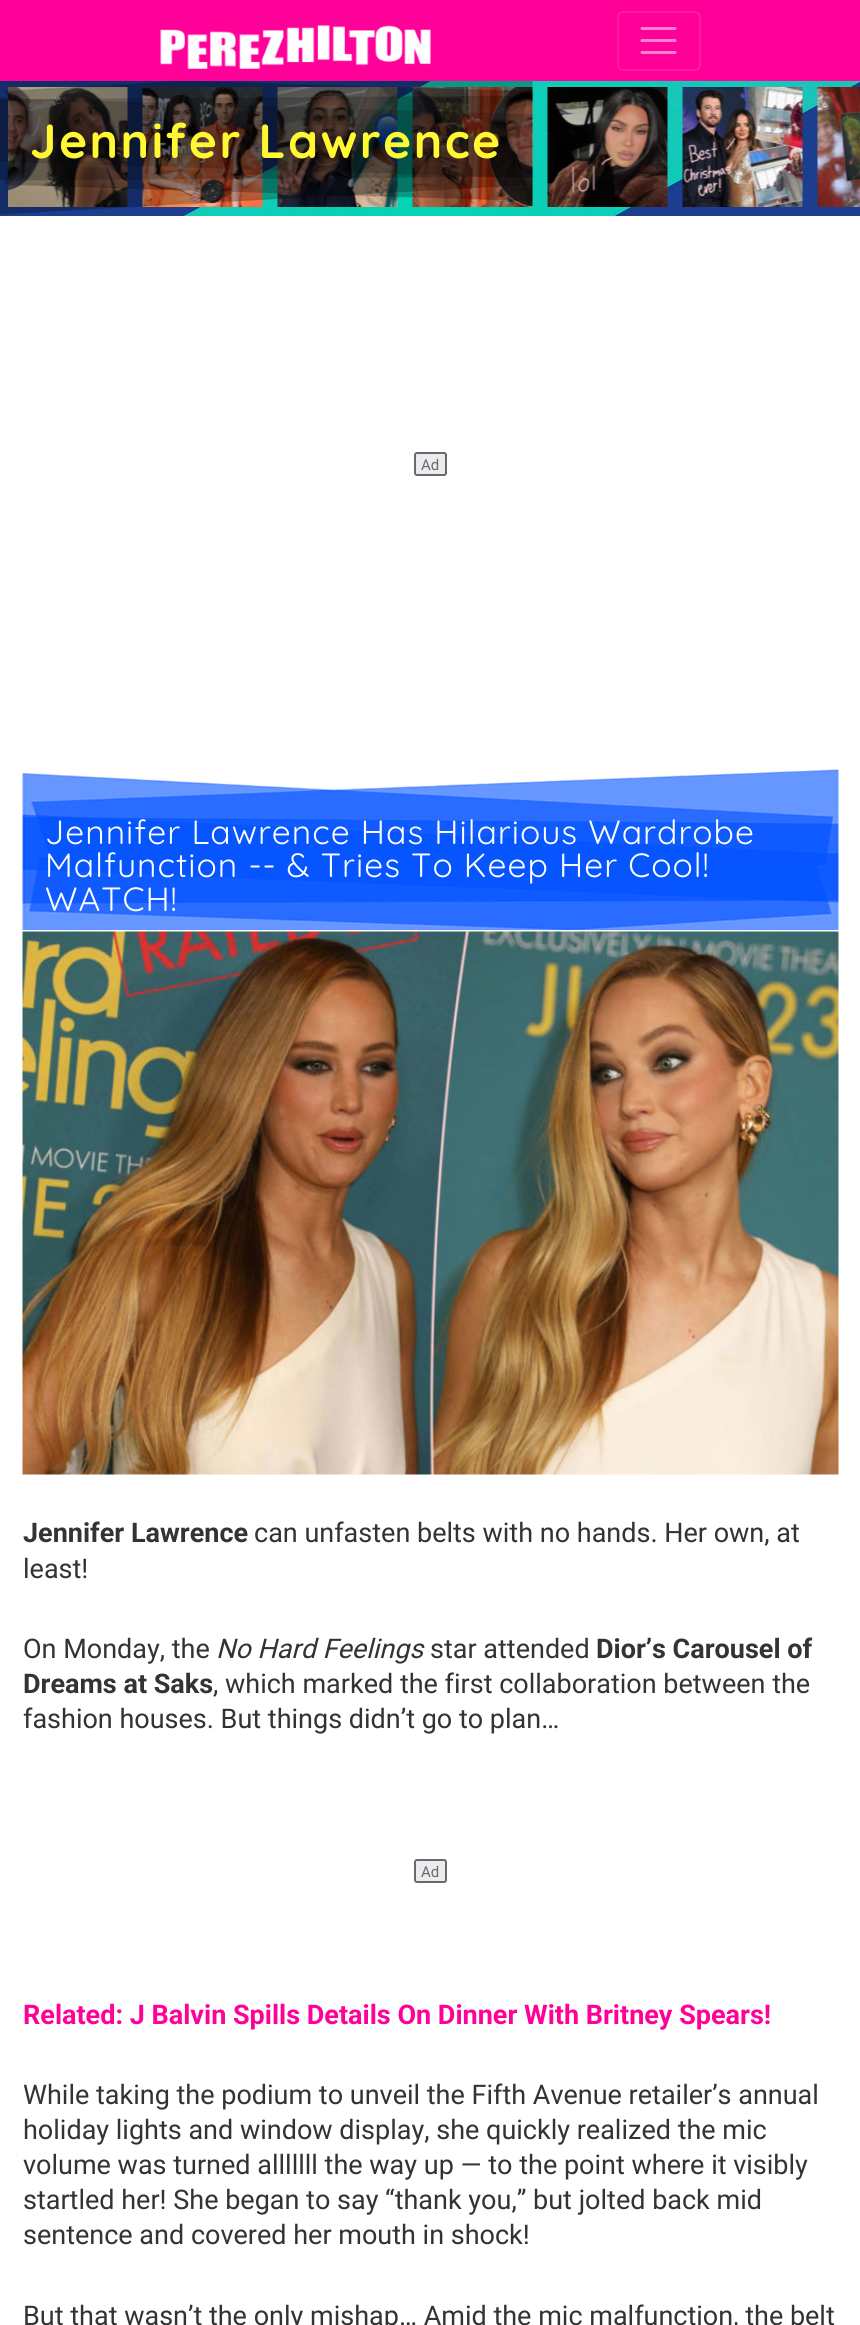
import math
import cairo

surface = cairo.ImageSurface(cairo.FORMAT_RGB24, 860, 2325)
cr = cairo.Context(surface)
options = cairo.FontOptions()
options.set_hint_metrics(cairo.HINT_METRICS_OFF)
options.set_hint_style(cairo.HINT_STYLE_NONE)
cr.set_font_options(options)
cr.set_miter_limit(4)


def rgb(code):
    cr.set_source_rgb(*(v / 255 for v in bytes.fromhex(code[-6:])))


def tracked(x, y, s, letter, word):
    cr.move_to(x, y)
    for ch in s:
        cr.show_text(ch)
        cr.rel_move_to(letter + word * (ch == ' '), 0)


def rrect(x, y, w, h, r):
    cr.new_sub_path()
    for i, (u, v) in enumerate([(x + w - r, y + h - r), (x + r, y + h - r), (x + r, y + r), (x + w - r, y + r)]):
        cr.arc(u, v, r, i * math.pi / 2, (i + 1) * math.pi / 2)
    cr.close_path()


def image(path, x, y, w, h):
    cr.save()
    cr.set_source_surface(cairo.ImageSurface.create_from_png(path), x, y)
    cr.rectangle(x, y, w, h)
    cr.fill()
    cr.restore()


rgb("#ffffff")
cr.paint()
rgb("#ff0099")
cr.rectangle(0, 0, 860, 81)
cr.fill()
image("img/1.png", 160, 25, 271, 44)
rrect(618, 12, 82, 58, 5)
rgb("#ff1aa3")
cr.stroke()
cr.new_path()
cr.move_to(642, 28.5)
cr.line_to(675, 28.5)
cr.move_to(642, 40.5)
cr.line_to(675, 40.5)
cr.move_to(642, 52.5)
cr.line_to(675, 52.5)
rgb("#ff80cc")
cr.set_line_width(3)
cr.set_line_cap(cairo.LINE_CAP_ROUND)
cr.stroke()
image("img/2.png", 0, 81, 860, 135)
image("img/3.png", 8, 87, 120, 120)
image("img/4.png", 142, 87, 121, 120)
image("img/5.png", 277, 87, 121, 120)
image("img/6.png", 412, 87, 121, 120)
image("img/7.png", 547, 87, 121, 120)
image("img/8.png", 682, 87, 121, 120)
image("img/9.png", 817, 87, 43, 120)
image("img/10.png", 0, 81, 533, 134)
rgb("#eaecef")
rrect(415, 453, 31, 22, 2)
cr.fill_preserve()
rgb("#696969")
cr.set_line_width(2)
cr.set_line_cap(cairo.LINE_CAP_BUTT)
cr.stroke()
image("img/11.png", 22, 769, 817, 161)
image("img/12.png", 22, 931, 817, 544)
rgb("#eaecef")
rrect(415, 1860, 31, 22, 2)
cr.fill_preserve()
rgb("#696969")
cr.stroke()
cr.select_font_face("Quicksand", cairo.FONT_SLANT_NORMAL, cairo.FONT_WEIGHT_BOLD)
cr.set_font_size(48)
rgb("#fff833")
tracked(30, 158, "Jennifer Lawrence", 2.4, 0)
cr.select_font_face("Roboto")
cr.set_font_size(15)
rgb("#696969")
cr.move_to(421, 470)
cr.show_text("Ad")
cr.select_font_face("Quicksand Light")
cr.set_font_size(33.6)
rgb("#ffffff")
for x, y, s in [
    (45, 844, "Jennifer Lawrence Has Hilarious Wardrobe"),
    (45, 877, "Malfunction -- & Tries To Keep Her Cool!"),
    (45, 911, "WATCH!"),
]:
    tracked(x, y, s, 1, 0)
cr.select_font_face("Roboto", cairo.FONT_SLANT_NORMAL, cairo.FONT_WEIGHT_BOLD)
cr.set_font_size(27)
rgb("#333333")
cr.move_to(23, 1542)
cr.show_text("Jennifer Lawrence")
cr.select_font_face("Roboto")
for x, y, s in [
    (254, 1542, "can unfasten belts with no hands. Her own, at"),
    (23, 1578, "least!"),
    (23, 1658, "On Monday, the"),
]:
    cr.move_to(x, y)
    cr.show_text(s)
cr.select_font_face("Roboto", cairo.FONT_SLANT_ITALIC)
cr.move_to(216, 1658)
cr.show_text("No Hard Feelings")
cr.select_font_face("Roboto")
cr.move_to(430, 1658)
cr.show_text("star attended")
cr.select_font_face("Roboto", cairo.FONT_SLANT_NORMAL, cairo.FONT_WEIGHT_BOLD)
cr.move_to(596, 1658)
cr.show_text("Dior’s Carousel of")
cr.move_to(23, 1693)
cr.show_text("Dreams at Saks")
cr.select_font_face("Roboto")
cr.move_to(213, 1693)
cr.show_text(", which marked the first collaboration between the")
cr.move_to(23, 1728)
cr.show_text("fashion houses. But things didn’t go to plan…")
cr.set_font_size(15)
rgb("#696969")
cr.move_to(421, 1877)
cr.show_text("Ad")
cr.select_font_face("Roboto", cairo.FONT_SLANT_NORMAL, cairo.FONT_WEIGHT_BOLD)
cr.set_font_size(27)
rgb("#ff0099")
cr.move_to(23, 2024)
cr.show_text("Related: J Balvin Spills Details On Dinner With Britney Spears!")
cr.select_font_face("Roboto")
rgb("#333333")
for x, y, s in [
    (23, 2104, "While taking the podium to unveil the Fifth Avenue retailer’s annual"),
    (23, 2139, "holiday lights and window display, she quickly realized the mic"),
    (23, 2174, "volume was turned alllllll the way up — to the point where it visibly"),
    (23, 2209, "startled her! She began to say “thank you,” but jolted back mid"),
    (23, 2244, "sentence and covered her mouth in shock!"),
    (23, 2325, "But that wasn’t the only mishap… Amid the mic malfunction, the belt"),
]:
    cr.move_to(x, y)
    cr.show_text(s)
surface.write_to_png("page.png")
